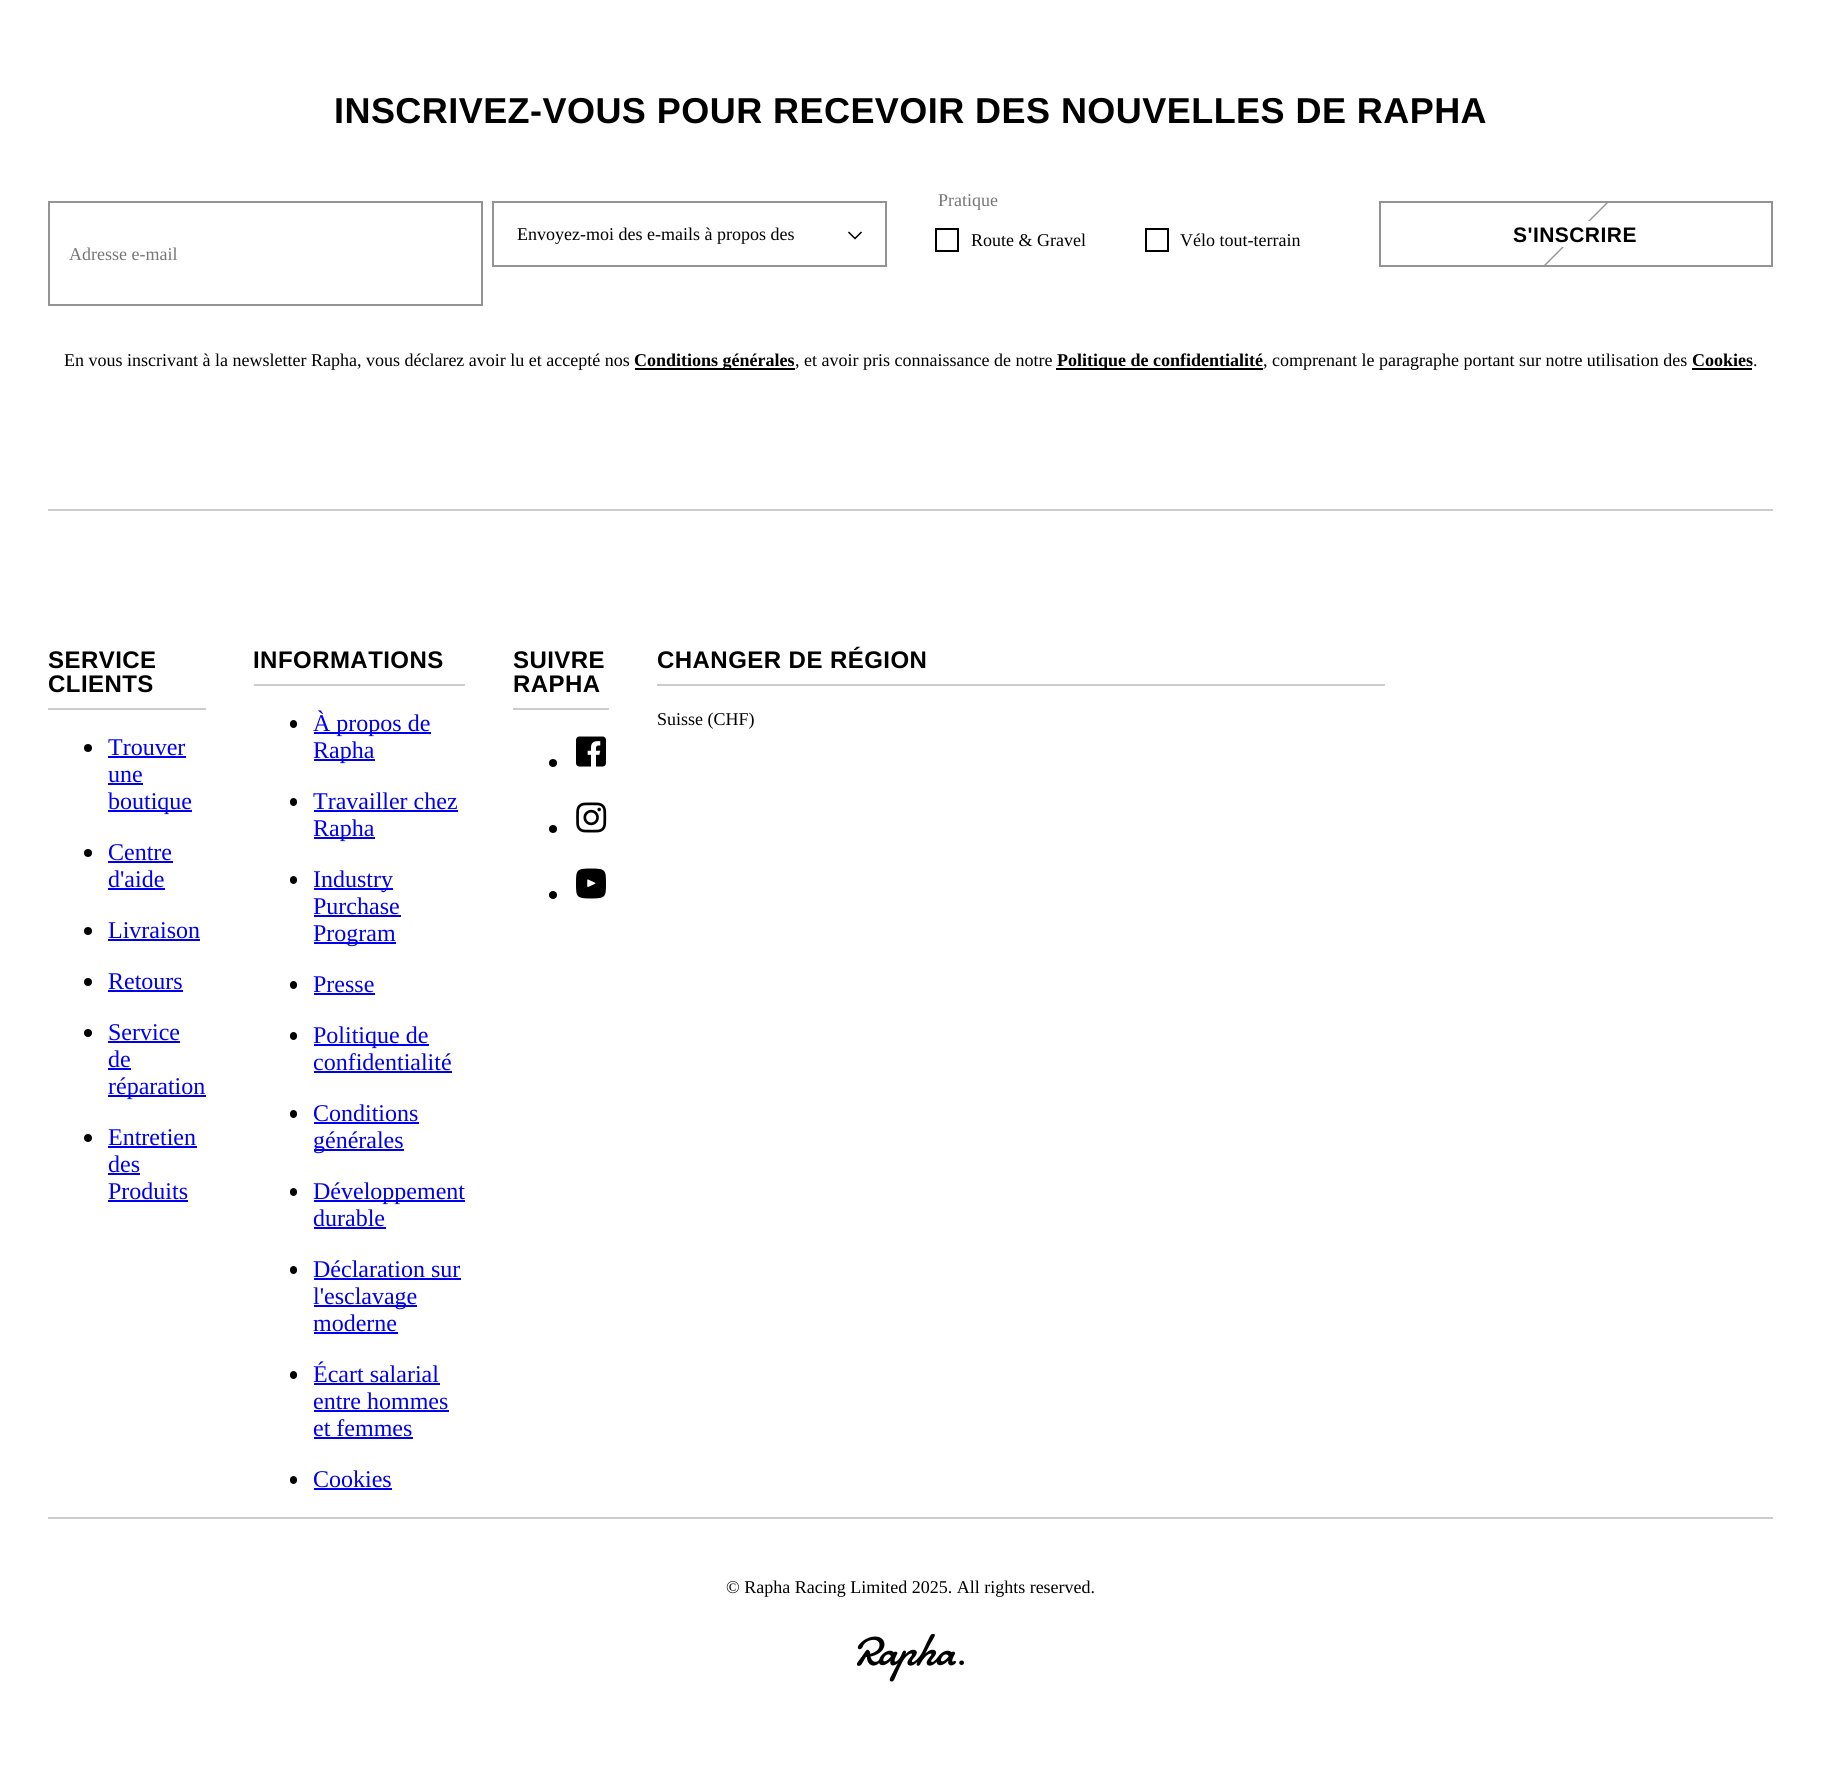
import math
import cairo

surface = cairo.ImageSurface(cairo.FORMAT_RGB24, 1821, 1777)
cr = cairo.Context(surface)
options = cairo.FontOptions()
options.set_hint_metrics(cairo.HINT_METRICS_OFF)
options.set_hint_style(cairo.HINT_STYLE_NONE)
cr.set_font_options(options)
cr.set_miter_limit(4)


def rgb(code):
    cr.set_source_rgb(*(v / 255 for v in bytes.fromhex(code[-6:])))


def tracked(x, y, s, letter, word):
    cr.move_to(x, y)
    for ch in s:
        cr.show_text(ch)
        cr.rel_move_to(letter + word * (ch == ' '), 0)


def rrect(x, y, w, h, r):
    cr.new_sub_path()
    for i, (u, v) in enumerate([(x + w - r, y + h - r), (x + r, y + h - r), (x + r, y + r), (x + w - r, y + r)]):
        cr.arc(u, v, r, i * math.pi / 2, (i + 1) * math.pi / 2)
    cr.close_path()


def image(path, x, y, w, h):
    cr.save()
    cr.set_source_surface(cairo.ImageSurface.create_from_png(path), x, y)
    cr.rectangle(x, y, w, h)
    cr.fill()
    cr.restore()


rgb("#ffffff")
cr.paint()
rgb("#cccccc")
cr.rectangle(48, 509, 1725, 2)
cr.fill()
cr.rectangle(493, 202, 393, 64)
rgb("#949494")
cr.stroke()
image("img/1.png", 848, 231, 14, 9)
cr.rectangle(936, 229, 22, 22)
rgb("#000000")
cr.stroke()
cr.rectangle(1146, 229, 22, 22)
cr.stroke()
cr.rectangle(1380, 202, 392, 64)
rgb("#949494")
cr.stroke()
cr.rectangle(49, 202, 433, 103)
cr.stroke()
for x, y, w, h, color in [
    (635, 368, 160, 2, "#000000"),
    (1056, 368, 207, 2, "#000000"),
    (1692, 368, 60, 2, "#000000"),
    (48, 708, 158, 2, "#cccccc"),
]:
    rgb(color)
    cr.rectangle(x, y, w, h)
    cr.fill()
rgb("#000000")
cr.arc(88, 748, 4, 0, 2 * math.pi)
cr.fill()
for x, y, w, h, color in [
    (108, 756, 78, 2, "#0000ee"),
    (108, 783, 35, 2, "#0000ee"),
    (108, 810, 84, 2, "#0000ee"),
]:
    rgb(color)
    cr.rectangle(x, y, w, h)
    cr.fill()
rgb("#000000")
cr.arc(88, 853, 4, 0, 2 * math.pi)
cr.fill()
rgb("#0000ee")
cr.rectangle(108, 861, 65, 2)
cr.fill()
cr.rectangle(108, 888, 57, 2)
cr.fill()
rgb("#000000")
cr.arc(88, 931, 4, 0, 2 * math.pi)
cr.fill()
rgb("#0000ee")
cr.rectangle(108, 939, 92, 2)
cr.fill()
rgb("#000000")
cr.arc(88, 982, 4, 0, 2 * math.pi)
cr.fill()
rgb("#0000ee")
cr.rectangle(108, 990, 75, 2)
cr.fill()
rgb("#000000")
cr.arc(88, 1033, 4, 0, 2 * math.pi)
cr.fill()
for x, y, w, h, color in [
    (108, 1041, 72, 2, "#0000ee"),
    (108, 1068, 23, 2, "#0000ee"),
    (108, 1095, 98, 2, "#0000ee"),
]:
    rgb(color)
    cr.rectangle(x, y, w, h)
    cr.fill()
rgb("#000000")
cr.arc(88, 1138, 4, 0, 2 * math.pi)
cr.fill()
for x, y, w, h, color in [
    (108, 1146, 89, 2, "#0000ee"),
    (108, 1173, 32, 2, "#0000ee"),
    (108, 1200, 80, 2, "#0000ee"),
    (254, 684, 211, 2, "#cccccc"),
]:
    rgb(color)
    cr.rectangle(x, y, w, h)
    cr.fill()
rgb("#000000")
rrect(290, 720, 7, 8, 3.5)
cr.fill()
rgb("#0000ee")
cr.rectangle(314, 732, 117, 2)
cr.fill()
cr.rectangle(314, 759, 61, 2)
cr.fill()
rgb("#000000")
rrect(290, 798, 7, 8, 3.5)
cr.fill()
rgb("#0000ee")
cr.rectangle(314, 810, 144, 2)
cr.fill()
cr.rectangle(314, 837, 61, 2)
cr.fill()
rgb("#000000")
rrect(290, 876, 7, 8, 3.5)
cr.fill()
for x, y, w, h, color in [
    (314, 888, 79, 2, "#0000ee"),
    (314, 915, 87, 2, "#0000ee"),
    (314, 942, 82, 2, "#0000ee"),
]:
    rgb(color)
    cr.rectangle(x, y, w, h)
    cr.fill()
rgb("#000000")
rrect(290, 981, 7, 8, 3.5)
cr.fill()
rgb("#0000ee")
cr.rectangle(314, 993, 61, 2)
cr.fill()
rgb("#000000")
rrect(290, 1032, 7, 8, 3.5)
cr.fill()
rgb("#0000ee")
cr.rectangle(314, 1044, 115, 2)
cr.fill()
cr.rectangle(314, 1071, 138, 2)
cr.fill()
rgb("#000000")
rrect(290, 1110, 7, 8, 3.5)
cr.fill()
rgb("#0000ee")
cr.rectangle(314, 1122, 105, 2)
cr.fill()
cr.rectangle(314, 1149, 90, 2)
cr.fill()
rgb("#000000")
rrect(290, 1188, 7, 8, 3.5)
cr.fill()
rgb("#0000ee")
cr.rectangle(314, 1200, 151, 2)
cr.fill()
cr.rectangle(314, 1227, 72, 2)
cr.fill()
rgb("#000000")
rrect(290, 1266, 7, 8, 3.5)
cr.fill()
for x, y, w, h, color in [
    (314, 1278, 147, 2, "#0000ee"),
    (314, 1305, 103, 2, "#0000ee"),
    (314, 1332, 84, 2, "#0000ee"),
]:
    rgb(color)
    cr.rectangle(x, y, w, h)
    cr.fill()
rgb("#000000")
rrect(290, 1371, 7, 8, 3.5)
cr.fill()
for x, y, w, h, color in [
    (314, 1383, 126, 2, "#0000ee"),
    (314, 1410, 135, 2, "#0000ee"),
    (314, 1437, 99, 2, "#0000ee"),
]:
    rgb(color)
    cr.rectangle(x, y, w, h)
    cr.fill()
rgb("#000000")
rrect(290, 1476, 7, 8, 3.5)
cr.fill()
rgb("#0000ee")
cr.rectangle(314, 1488, 78, 2)
cr.fill()
rgb("#cccccc")
cr.rectangle(513, 708, 96, 2)
cr.fill()
rgb("#000000")
cr.arc(553, 763, 4, 0, 2 * math.pi)
cr.fill()
image("img/2.png", 576, 736, 30, 31)
cr.arc(553, 829, 4, 0, 2 * math.pi)
cr.fill()
image("img/3.png", 576, 802, 31, 31)
cr.arc(553, 895, 4, 0, 2 * math.pi)
cr.fill()
image("img/4.png", 576, 868, 30, 31)
rgb("#cccccc")
cr.rectangle(657, 684, 728, 2)
cr.fill()
cr.rectangle(48, 1517, 1725, 2)
cr.fill()
image("img/5.png", 856, 1634, 108, 48)
cr.select_font_face("Liberation Sans", cairo.FONT_SLANT_NORMAL, cairo.FONT_WEIGHT_BOLD)
cr.set_font_size(36)
rgb("#000000")
tracked(334, 123, "INSCRIVEZ-VOUS POUR RECEVOIR DES NOUVELLES DE RAPHA", 0.45, 0)
cr.select_font_face("Liberation Serif")
cr.set_font_size(18)
cr.move_to(517, 240)
cr.show_text("Envoyez-moi des e-mails à propos des")
rgb("#767676")
cr.move_to(938, 206)
cr.show_text("Pratique")
rgb("#000000")
cr.move_to(971, 246)
cr.show_text("Route & Gravel")
cr.move_to(1180, 246)
cr.show_text("Vélo tout-terrain")
cr.select_font_face("Liberation Sans", cairo.FONT_SLANT_NORMAL, cairo.FONT_WEIGHT_BOLD)
cr.set_font_size(21)
tracked(1513, 242, "S'INSCRIRE", 0.45, 0)
cr.save()
cr.rectangle(1380, 203, 392, 63)
cr.clip()
gradient = cairo.LinearGradient(1576, 279, 1576, 189)
gradient.add_color_stop_rgba(0.35, 0.58, 0.58, 0.58, 1)
gradient.add_color_stop_rgba(0.35, 0.58, 0.58, 0.58, 0)
gradient.add_color_stop_rgba(0.65, 0.58, 0.58, 0.58, 0)
gradient.add_color_stop_rgba(0.65, 0.58, 0.58, 0.58, 1)
cr.set_source(gradient)
cr.new_path()
cr.move_to(1620, 189)
cr.line_to(1621, 190)
cr.line_to(1532, 279)
cr.line_to(1531, 278)
cr.close_path()
cr.fill()
cr.restore()
cr.select_font_face("Liberation Serif")
cr.set_font_size(18)
rgb("#767676")
cr.move_to(69, 260)
cr.show_text("Adresse e-mail")
rgb("#000000")
cr.move_to(64, 366)
cr.show_text("En vous inscrivant à la newsletter Rapha, vous déclarez avoir lu et accepté nos")
cr.select_font_face("Liberation Serif", cairo.FONT_SLANT_NORMAL, cairo.FONT_WEIGHT_BOLD)
cr.move_to(634, 366)
cr.show_text("Conditions générales")
cr.select_font_face("Liberation Serif")
cr.move_to(795, 366)
cr.show_text(", et avoir pris connaissance de notre")
cr.select_font_face("Liberation Serif", cairo.FONT_SLANT_NORMAL, cairo.FONT_WEIGHT_BOLD)
cr.move_to(1057, 366)
cr.show_text("Politique de confidentialité")
cr.select_font_face("Liberation Serif")
cr.move_to(1263, 366)
cr.show_text(", comprenant le paragraphe portant sur notre utilisation des")
cr.select_font_face("Liberation Serif", cairo.FONT_SLANT_NORMAL, cairo.FONT_WEIGHT_BOLD)
cr.move_to(1692, 366)
cr.show_text("Cookies")
cr.select_font_face("Liberation Serif")
cr.move_to(1753, 366)
cr.show_text(".")
cr.select_font_face("Liberation Sans", cairo.FONT_SLANT_NORMAL, cairo.FONT_WEIGHT_BOLD)
cr.set_font_size(24)
tracked(48, 668, "SERVICE", 0.45, 0)
tracked(48, 692, "CLIENTS", 0.45, 0)
cr.select_font_face("Liberation Serif")
rgb("#0000ee")
for x, y, s in [
    (108, 755, "Trouver"),
    (108, 782, "une"),
    (108, 809, "boutique"),
    (108, 860, "Centre"),
    (108, 887, "d'aide"),
    (108, 938, "Livraison"),
    (108, 989, "Retours"),
    (108, 1040, "Service"),
    (108, 1067, "de"),
    (108, 1094, "réparation"),
    (108, 1145, "Entretien"),
    (108, 1172, "des"),
    (108, 1199, "Produits"),
]:
    cr.move_to(x, y)
    cr.show_text(s)
cr.select_font_face("Liberation Sans", cairo.FONT_SLANT_NORMAL, cairo.FONT_WEIGHT_BOLD)
rgb("#000000")
tracked(253, 668, "INFORMATIONS", 0.45, 0)
cr.select_font_face("Liberation Serif")
rgb("#0000ee")
for x, y, s in [
    (313, 731, "À propos de"),
    (313, 758, "Rapha"),
    (313, 809, "Travailler chez"),
    (313, 836, "Rapha"),
    (313, 887, "Industry"),
    (313, 914, "Purchase"),
    (313, 941, "Program"),
    (313, 992, "Presse"),
    (313, 1043, "Politique de"),
    (313, 1070, "confidentialité"),
    (313, 1121, "Conditions"),
    (313, 1148, "générales"),
    (313, 1199, "Développement"),
    (313, 1226, "durable"),
    (313, 1277, "Déclaration sur"),
    (313, 1304, "l'esclavage"),
    (313, 1331, "moderne"),
    (313, 1382, "Écart salarial"),
    (313, 1409, "entre hommes"),
    (313, 1436, "et femmes"),
    (313, 1487, "Cookies"),
]:
    cr.move_to(x, y)
    cr.show_text(s)
cr.select_font_face("Liberation Sans", cairo.FONT_SLANT_NORMAL, cairo.FONT_WEIGHT_BOLD)
rgb("#000000")
for x, y, s in [
    (513, 668, "SUIVRE"),
    (513, 692, "RAPHA"),
    (657, 668, "CHANGER DE RÉGION"),
]:
    tracked(x, y, s, 0.45, 0)
cr.select_font_face("Liberation Serif")
cr.set_font_size(18)
cr.move_to(657, 725)
cr.show_text("Suisse (CHF)")
cr.move_to(726, 1593)
cr.show_text("© Rapha Racing Limited 2025. All rights reserved.")
surface.write_to_png("page.png")
